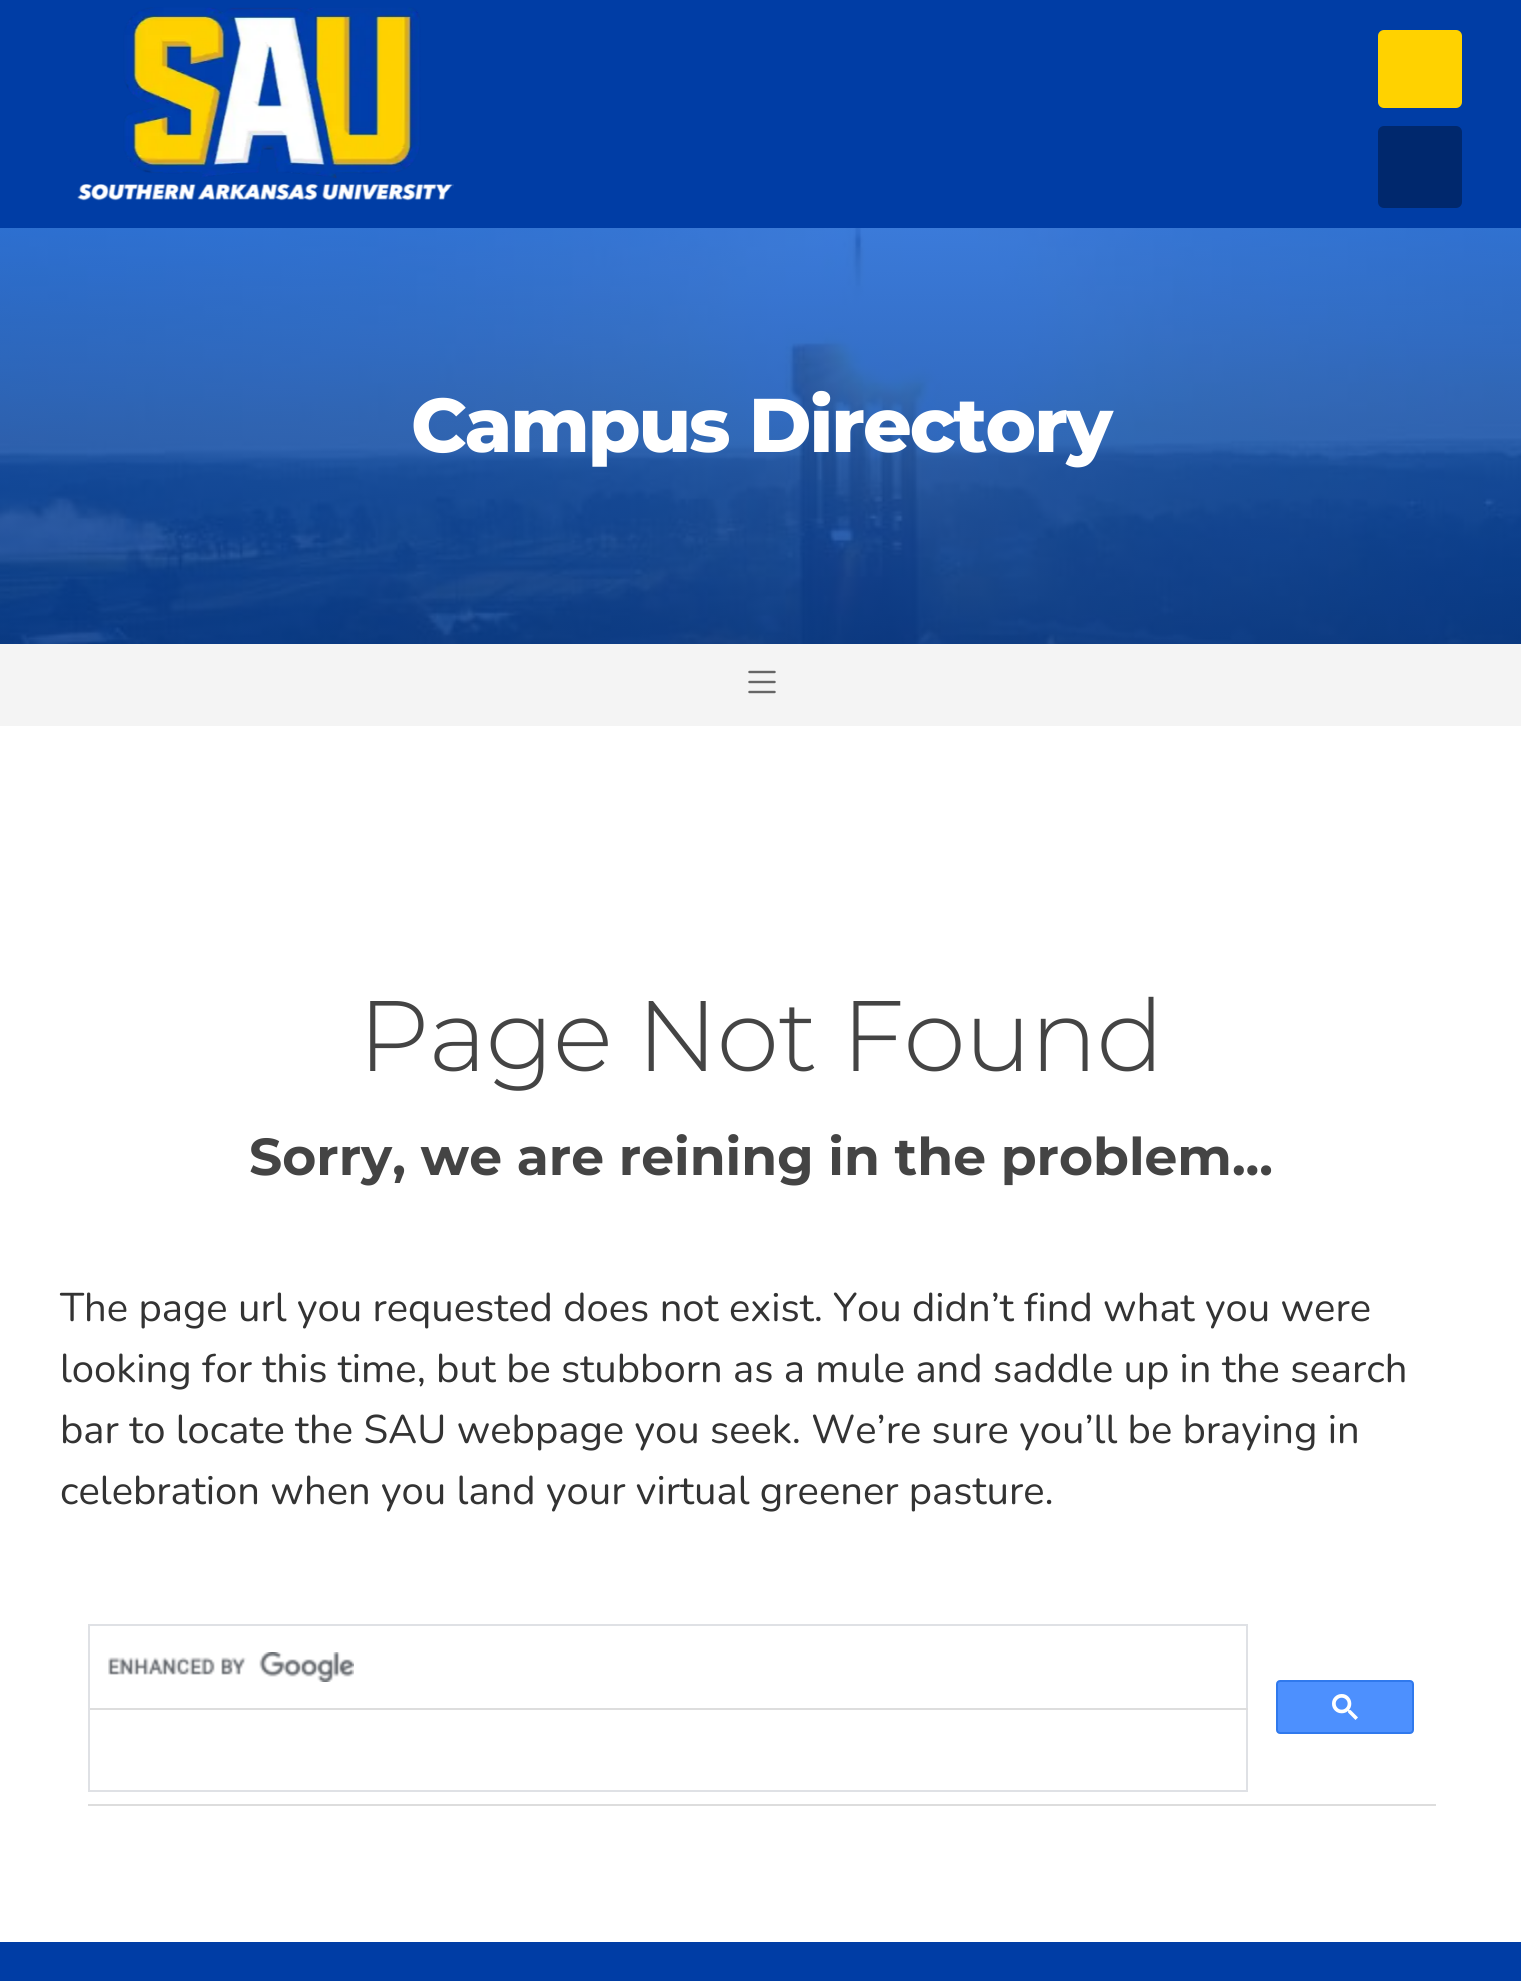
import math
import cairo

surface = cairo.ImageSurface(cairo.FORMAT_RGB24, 1521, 1981)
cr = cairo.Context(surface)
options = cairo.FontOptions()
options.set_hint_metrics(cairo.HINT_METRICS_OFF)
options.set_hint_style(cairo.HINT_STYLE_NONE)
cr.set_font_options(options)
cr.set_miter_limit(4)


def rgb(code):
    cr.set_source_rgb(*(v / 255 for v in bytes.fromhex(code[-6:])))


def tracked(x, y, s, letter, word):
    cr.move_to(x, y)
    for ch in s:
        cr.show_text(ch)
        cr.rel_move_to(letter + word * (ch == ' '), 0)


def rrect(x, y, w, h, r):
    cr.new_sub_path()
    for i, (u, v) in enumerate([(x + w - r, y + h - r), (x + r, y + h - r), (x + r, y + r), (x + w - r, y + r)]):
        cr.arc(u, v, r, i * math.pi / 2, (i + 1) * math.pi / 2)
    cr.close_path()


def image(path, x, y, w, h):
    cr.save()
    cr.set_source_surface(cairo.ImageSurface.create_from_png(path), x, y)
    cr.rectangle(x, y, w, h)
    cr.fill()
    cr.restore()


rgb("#ffffff")
cr.paint()
rgb("#003da5")
cr.rectangle(0, 0, 1521, 228)
cr.fill()
image("img/1.png", 77, 7, 377, 194)
rgb("#ffd200")
rrect(1378, 30, 84, 78, 6)
cr.fill()
rgb("#00286d")
rrect(1378, 126, 84, 82, 6)
cr.fill()
image("img/2.png", 0, 228, 1521, 416)
rgb("#f4f4f4")
cr.rectangle(0, 644, 1521, 82)
cr.fill()
image("img/3.png", 748, 670, 28, 24)
rgb("#dddddd")
cr.rectangle(88, 1804, 1348, 2)
cr.fill()
cr.rectangle(89, 1625, 1158, 166)
rgb("#dfe1e5")
cr.stroke()
rgb("#dddddd")
cr.rectangle(90, 1708, 1158, 2)
cr.fill()
image("img/4.png", 108, 1652, 246, 30)
rgb("#4d90fe")
rrect(1277, 1681, 136, 52, 3)
cr.fill_preserve()
rgb("#3079ed")
cr.stroke()
image("img/5.png", 1332, 1694, 26, 26)
rgb("#003da5")
cr.rectangle(0, 1942, 1521, 39)
cr.fill()
cr.select_font_face("Montserrat ExtraBold")
cr.set_font_size(76)
rgb("#ffffff")
tracked(411, 452, "Campus Directory", -2, 0)
cr.select_font_face("Montserrat Light")
cr.set_font_size(100)
rgb("#444444")
tracked(358, 1071, "Page Not Found", -1, 0)
cr.select_font_face("Montserrat", cairo.FONT_SLANT_NORMAL, cairo.FONT_WEIGHT_BOLD)
cr.set_font_size(52)
cr.move_to(249, 1175)
cr.show_text("Sorry, we are reining in the problem...")
cr.select_font_face("Nunito")
cr.set_font_size(40)
rgb("#333333")
for x, y, s in [
    (60, 1321, "The page url you requested does not exist. You didn’t find what you were"),
    (60, 1382, "looking for this time, but be stubborn as a mule and saddle up in the search"),
    (60, 1443, "bar to locate the SAU webpage you seek. We’re sure you’ll be braying in"),
    (60, 1504, "celebration when you land your virtual greener pasture."),
]:
    cr.move_to(x, y)
    cr.show_text(s)
surface.write_to_png("page.png")
